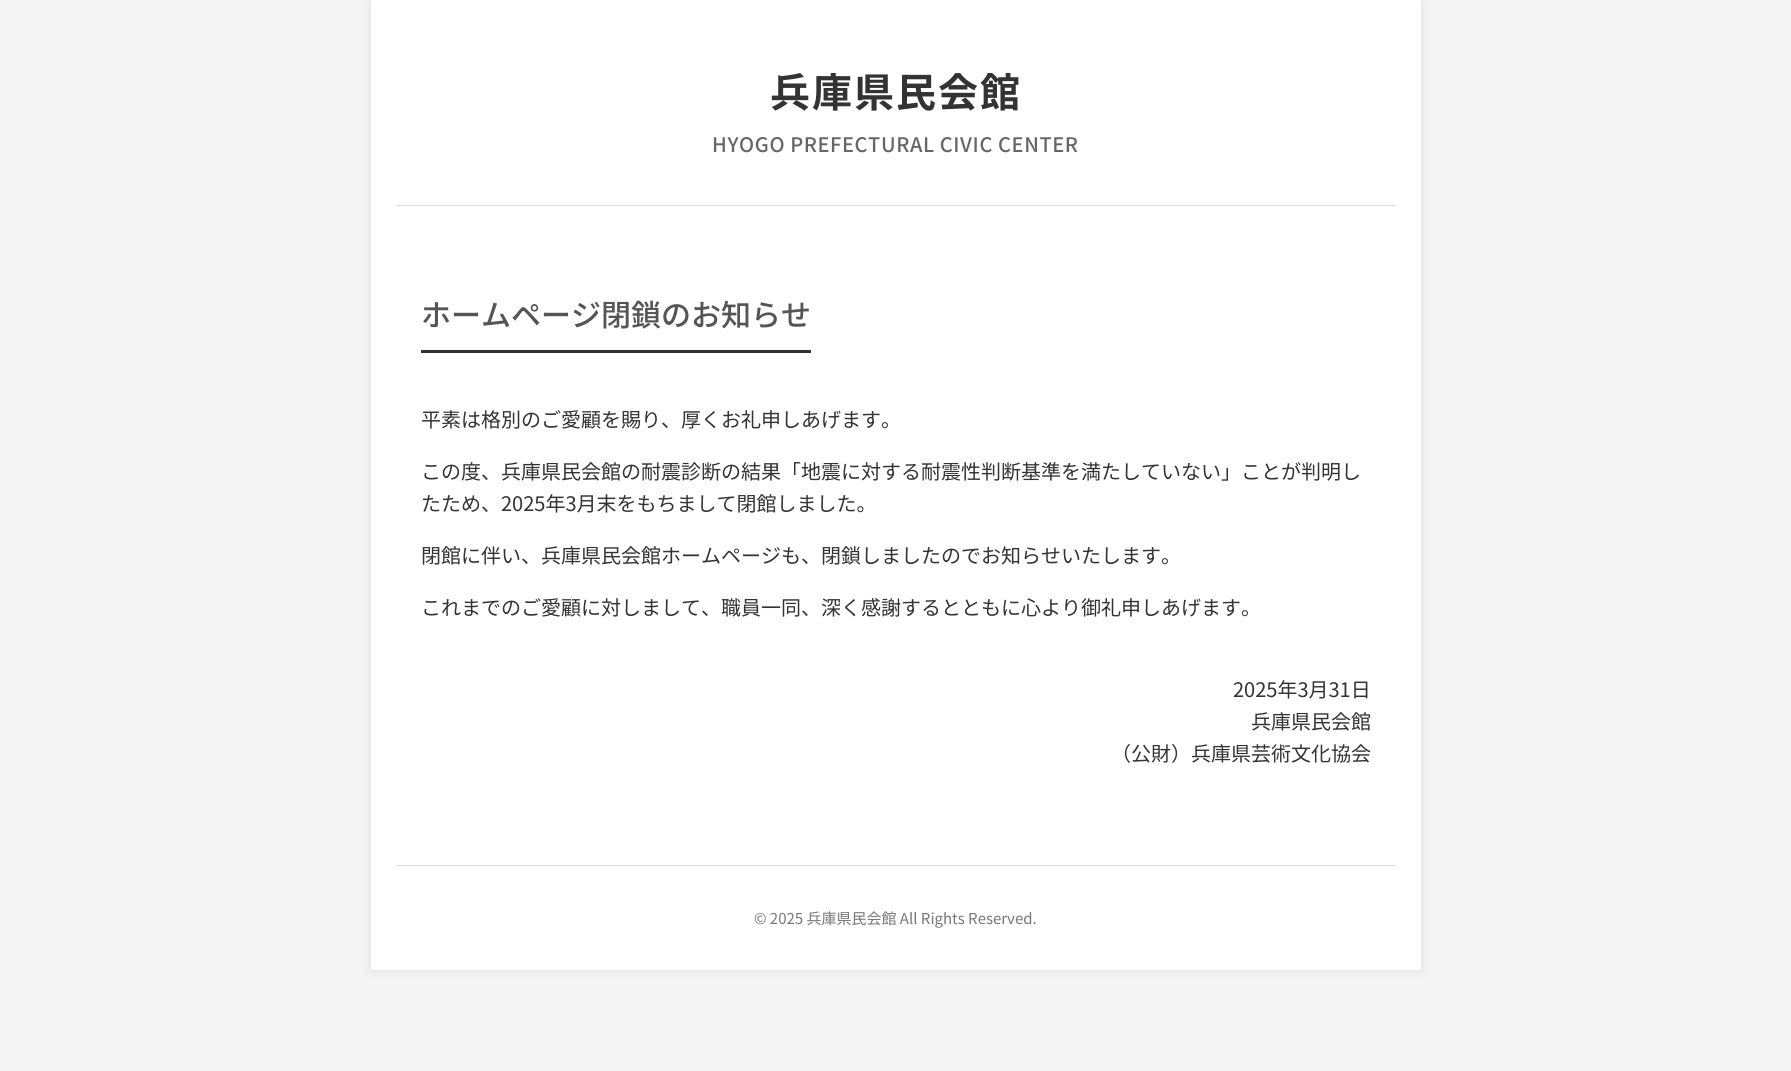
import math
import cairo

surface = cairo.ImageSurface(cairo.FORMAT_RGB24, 1791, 1071)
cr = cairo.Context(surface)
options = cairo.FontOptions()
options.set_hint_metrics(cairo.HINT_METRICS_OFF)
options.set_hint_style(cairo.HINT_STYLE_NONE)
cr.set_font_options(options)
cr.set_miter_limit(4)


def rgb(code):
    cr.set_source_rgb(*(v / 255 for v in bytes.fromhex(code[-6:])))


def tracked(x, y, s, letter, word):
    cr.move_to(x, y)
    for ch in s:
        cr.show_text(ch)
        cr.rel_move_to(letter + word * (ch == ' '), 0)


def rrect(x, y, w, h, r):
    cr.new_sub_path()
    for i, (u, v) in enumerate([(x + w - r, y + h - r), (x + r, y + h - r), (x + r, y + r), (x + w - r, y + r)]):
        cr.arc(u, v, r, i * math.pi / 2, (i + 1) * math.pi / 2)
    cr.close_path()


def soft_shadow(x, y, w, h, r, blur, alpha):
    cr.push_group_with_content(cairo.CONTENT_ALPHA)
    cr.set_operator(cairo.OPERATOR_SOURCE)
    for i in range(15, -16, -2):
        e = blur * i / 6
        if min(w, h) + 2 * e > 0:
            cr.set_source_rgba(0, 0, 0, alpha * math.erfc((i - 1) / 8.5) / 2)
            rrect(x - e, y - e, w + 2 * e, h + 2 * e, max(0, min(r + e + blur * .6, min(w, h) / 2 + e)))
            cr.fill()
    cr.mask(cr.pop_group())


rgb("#f5f5f5")
cr.paint()
rgb("#000000")
soft_shadow(371, 0, 1050, 970, 0, 6, 0.1)
for x, y, w, h, color in [
    (371, 0, 1050, 970, "#ffffff"),
    (396, 205, 1000, 1, "#dddddd"),
    (421, 350, 390, 3, "#333333"),
    (396, 865, 1000, 1, "#dddddd"),
]:
    rgb(color)
    cr.rectangle(x, y, w, h)
    cr.fill()
cr.select_font_face("Noto Sans JP", cairo.FONT_SLANT_NORMAL, cairo.FONT_WEIGHT_BOLD)
cr.set_font_size(40)
rgb("#333333")
tracked(770, 107, "兵庫県民会館", 2, 0)
cr.select_font_face("Noto Sans JP Medium")
cr.set_font_size(20)
rgb("#666666")
tracked(712, 152, "HYOGO PREFECTURAL CIVIC CENTER", 0.6, 0)
cr.set_font_size(30)
rgb("#555555")
cr.move_to(421, 326)
cr.show_text("ホームページ閉鎖のお知らせ")
cr.select_font_face("Noto Sans JP")
cr.set_font_size(20)
rgb("#333333")
for x, y, s in [
    (421, 427, "平素は格別のご愛顧を賜り、厚くお礼申しあげます。"),
    (421, 479, "この度、兵庫県民会館の耐震診断の結果「地震に対する耐震性判断基準を満たしていない」ことが判明し"),
    (421, 511, "たため、2025年3月末をもちまして閉館しました。"),
    (421, 563, "閉館に伴い、兵庫県民会館ホームページも、閉鎖しましたのでお知らせいたします。"),
    (421, 615, "これまでのご愛顧に対しまして、職員一同、深く感謝するとともに心より御礼申しあげます。"),
    (1233, 697, "2025年3月31日"),
    (1251, 729, "兵庫県民会館"),
    (1111, 761, "（公財）兵庫県芸術文化協会"),
]:
    cr.move_to(x, y)
    cr.show_text(s)
cr.set_font_size(15)
rgb("#777777")
cr.move_to(754, 924)
cr.show_text("© 2025 兵庫県民会館 All Rights Reserved.")
surface.write_to_png("page.png")
